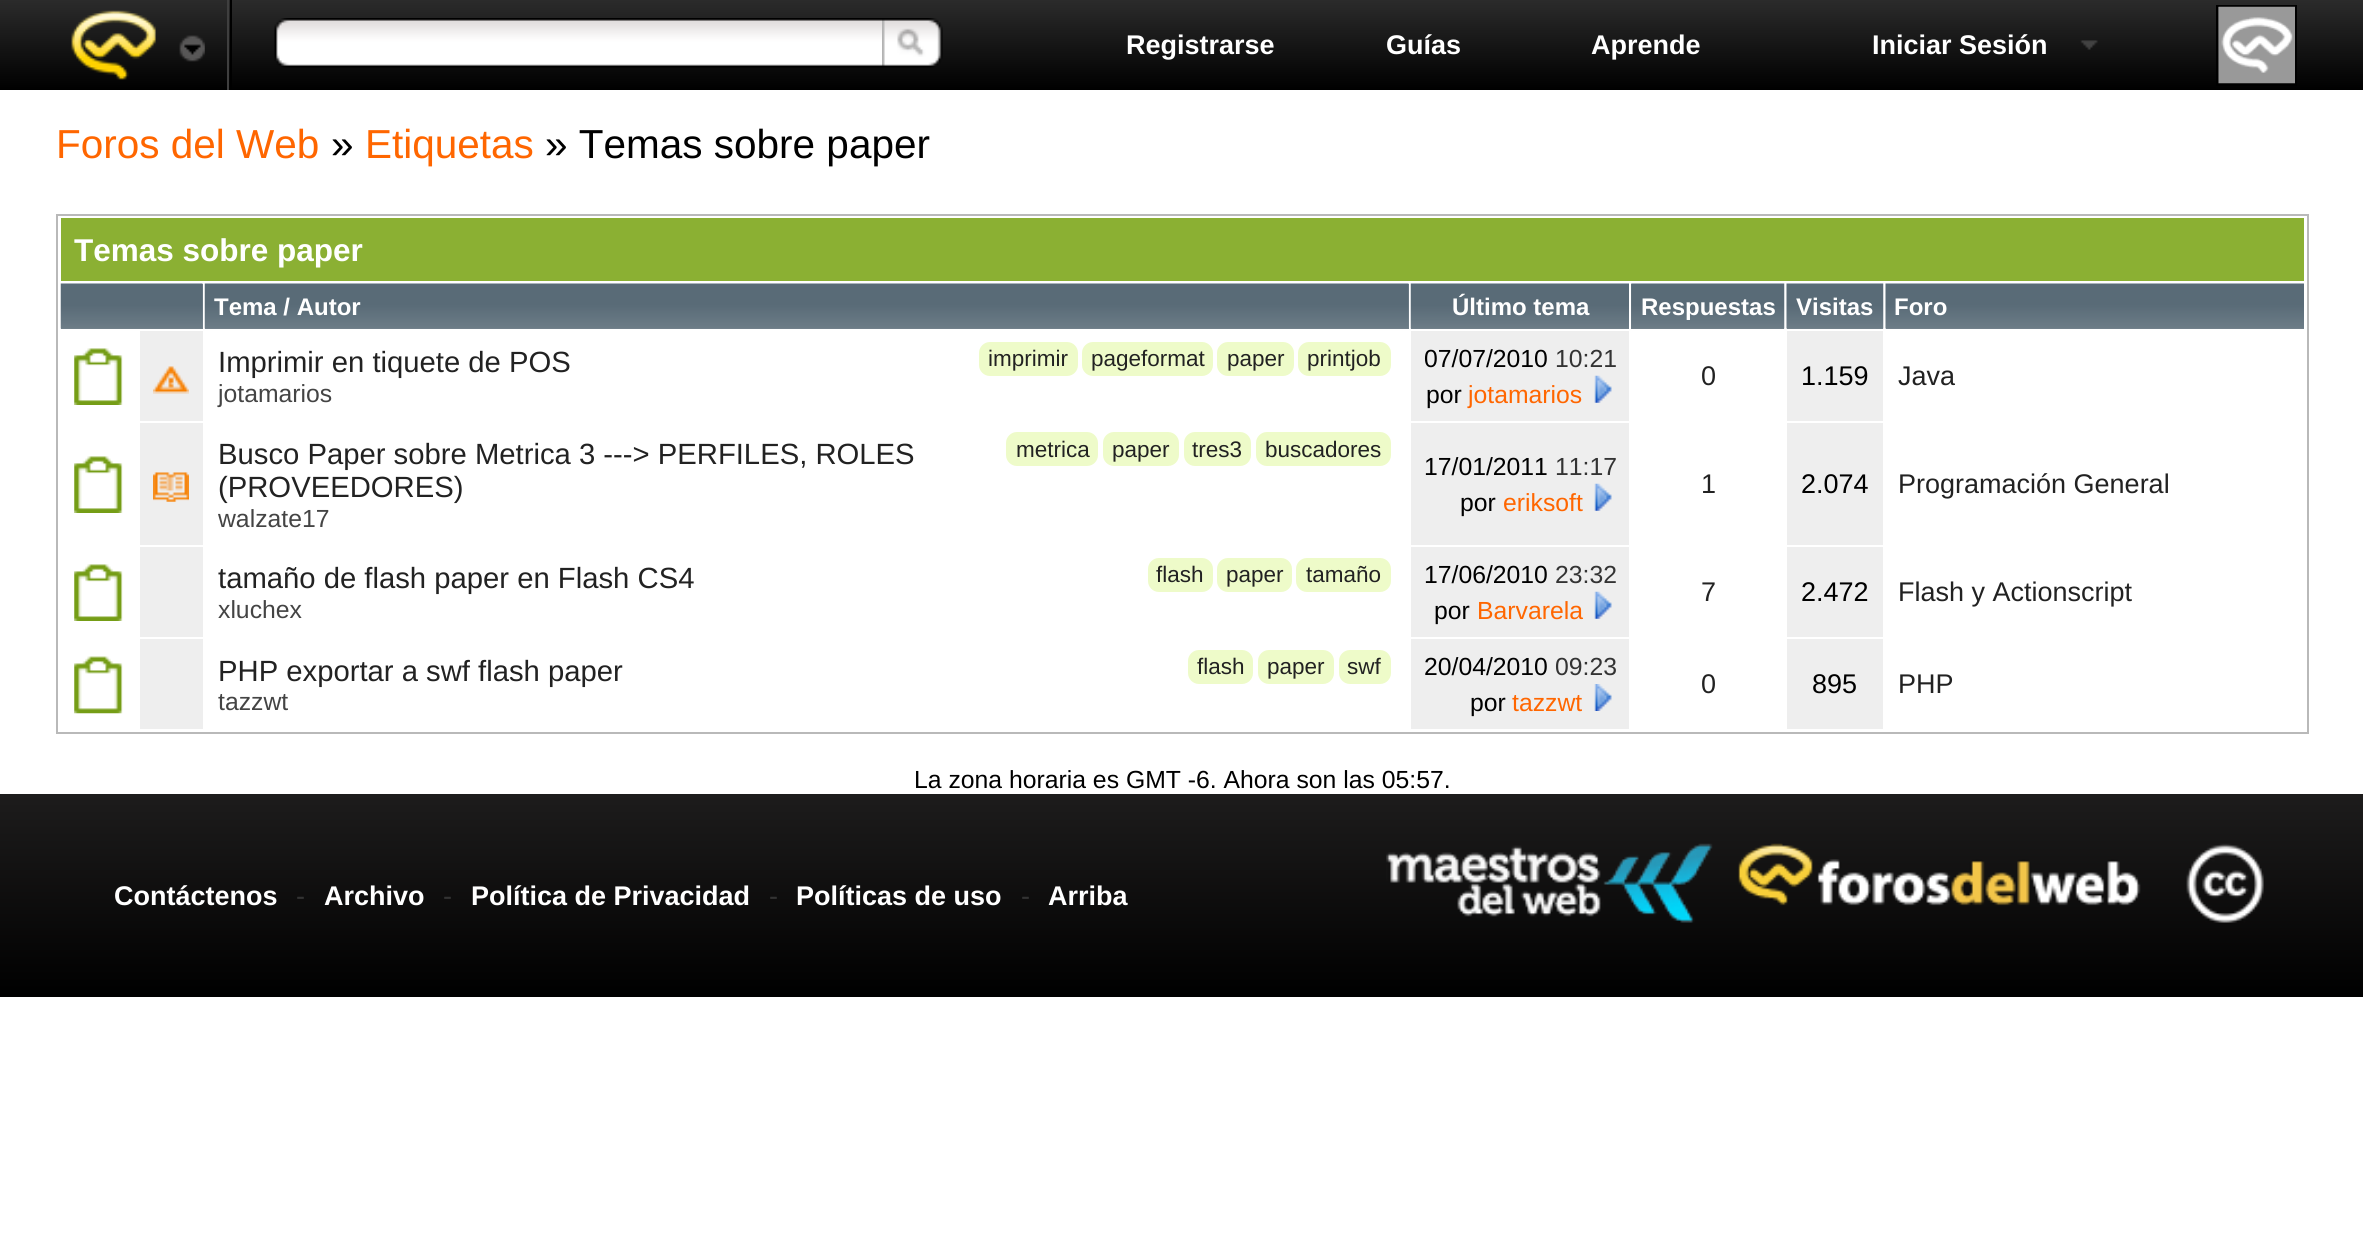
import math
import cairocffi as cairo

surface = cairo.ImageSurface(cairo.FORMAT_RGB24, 2363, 1240)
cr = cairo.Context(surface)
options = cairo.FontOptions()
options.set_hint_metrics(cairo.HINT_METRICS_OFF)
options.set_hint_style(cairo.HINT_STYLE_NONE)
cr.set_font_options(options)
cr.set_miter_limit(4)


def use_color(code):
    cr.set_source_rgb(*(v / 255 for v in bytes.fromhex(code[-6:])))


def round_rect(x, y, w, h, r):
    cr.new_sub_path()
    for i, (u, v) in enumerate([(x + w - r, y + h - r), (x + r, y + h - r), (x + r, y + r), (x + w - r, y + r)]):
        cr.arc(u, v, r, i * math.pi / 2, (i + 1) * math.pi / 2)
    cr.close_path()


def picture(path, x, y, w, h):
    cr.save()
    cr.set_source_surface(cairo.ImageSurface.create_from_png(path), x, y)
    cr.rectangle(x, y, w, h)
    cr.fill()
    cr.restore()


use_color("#ffffff")
cr.paint()
gradient = cairo.LinearGradient(0, 0, 0, 90)
gradient.add_color_stop_rgba(0, 0.169, 0.169, 0.169, 1)
gradient.add_color_stop_rgba(1, 0, 0, 0, 1)
cr.set_source(gradient)
cr.rectangle(0, 0, 2363, 90)
cr.fill()
use_color("#000000")
cr.rectangle(230, 0, 2, 90)
cr.fill()
use_color("#3f3f3f")
cr.rectangle(227, 0, 2, 90)
cr.fill()
picture("img1.png", 71, 10, 134, 70)
picture("img2.png", 274, 18, 608, 50)
picture("img3.png", 882, 18, 61, 50)
cr.select_font_face("Liberation Sans", cairo.FONT_SLANT_NORMAL, cairo.FONT_WEIGHT_BOLD)
cr.set_font_size(27)
use_color("#ffffff")
cr.move_to(1126, 54)
cr.show_text("Registrarse")
cr.move_to(1386, 54)
cr.show_text("Guías")
cr.move_to(1591, 54)
cr.show_text("Aprende")
cr.move_to(1872, 54)
cr.show_text("Iniciar Sesión")
picture("img4.png", 2080, 40, 18, 10)
cr.rectangle(2217, 6, 79, 79)
use_color("#000000")
cr.stroke()
picture("img5.png", 2218, 6, 77, 78)
cr.select_font_face("Liberation Sans")
cr.set_font_size(40.5)
use_color("#ff6600")
cr.move_to(56, 158)
cr.show_text("Foros del Web")
use_color("#000000")
cr.move_to(331, 158)
cr.show_text("»")
use_color("#ff6600")
cr.move_to(365, 158)
cr.show_text("Etiquetas")
use_color("#000000")
cr.move_to(545, 158)
cr.show_text("» Temas sobre paper")
cr.rectangle(57, 215, 2251, 518)
use_color("#b9b9b9")
cr.stroke()
use_color("#8bb033")
cr.rectangle(61, 218, 2243, 63)
cr.fill()
cr.select_font_face("Liberation Sans", cairo.FONT_SLANT_NORMAL, cairo.FONT_WEIGHT_BOLD)
cr.set_font_size(31.5)
use_color("#ffffff")
cr.move_to(74, 261)
cr.show_text("Temas sobre paper")
use_color("#76848e")
cr.rectangle(61, 284, 142, 45)
cr.fill()
picture("img6.png", 60, 283, 143, 46)
cr.rectangle(205, 284, 1204, 45)
cr.fill()
picture("img7.png", 204, 283, 1205, 46)
cr.set_font_size(24)
use_color("#ffffff")
cr.move_to(214, 315)
cr.show_text("Tema / Autor")
use_color("#76848e")
cr.rectangle(1411, 328, 218, 1)
cr.fill()
picture("img8.png", 1410, 283, 219, 46)
use_color("#ffffff")
cr.move_to(1452, 315)
cr.show_text("Último tema")
use_color("#76848e")
cr.rectangle(1631, 284, 153, 45)
cr.fill()
picture("img9.png", 1631, 283, 154, 46)
use_color("#ffffff")
cr.move_to(1641, 315)
cr.show_text("Respuestas")
use_color("#76848e")
cr.rectangle(1787, 328, 96, 1)
cr.fill()
picture("img10.png", 1786, 283, 98, 46)
use_color("#ffffff")
cr.move_to(1796, 315)
cr.show_text("Visitas")
use_color("#76848e")
cr.rectangle(1886, 328, 418, 1)
cr.fill()
picture("img11.png", 1885, 283, 419, 46)
use_color("#ffffff")
cr.move_to(1894, 315)
cr.show_text("Foro")
picture("img12.png", 74, 348, 49, 57)
use_color("#eeeeee")
cr.rectangle(140, 331, 63, 90)
cr.fill()
picture("img13.png", 153, 366, 36, 28)
cr.select_font_face("Liberation Sans")
cr.set_font_size(29.25)
use_color("#222222")
cr.move_to(218, 372)
cr.show_text("Imprimir en tiquete de POS")
use_color("#eefbc9")
round_rect(979, 342, 99, 34, 11)
cr.fill()
cr.set_font_size(22.5)
use_color("#222222")
cr.move_to(988, 366)
cr.show_text("imprimir")
use_color("#eefbc9")
round_rect(1082, 342, 131, 34, 11)
cr.fill()
use_color("#222222")
cr.move_to(1091, 366)
cr.show_text("pageformat")
use_color("#eefbc9")
round_rect(1217, 342, 77, 34, 11)
cr.fill()
use_color("#222222")
cr.move_to(1227, 366)
cr.show_text("paper")
use_color("#eefbc9")
round_rect(1298, 342, 93, 34, 11)
cr.fill()
use_color("#222222")
cr.move_to(1307, 366)
cr.show_text("printjob")
cr.set_font_size(24.75)
use_color("#444444")
cr.move_to(218, 402)
cr.show_text("jotamarios")
use_color("#eeeeee")
cr.rectangle(1411, 331, 218, 90)
cr.fill()
use_color("#000000")
cr.move_to(1424, 367)
cr.show_text("07/07/2010")
use_color("#333333")
cr.move_to(1555, 367)
cr.show_text("10:21")
use_color("#000000")
cr.move_to(1426, 403)
cr.show_text("por")
use_color("#ff6600")
cr.move_to(1468, 403)
cr.show_text("jotamarios")
picture("img14.png", 1594, 375, 18, 28)
cr.set_font_size(27)
use_color("#222222")
cr.move_to(1701, 385)
cr.show_text("0")
use_color("#eeeeee")
cr.rectangle(1787, 331, 96, 90)
cr.fill()
use_color("#000000")
cr.move_to(1801, 385)
cr.show_text("1.159")
use_color("#222222")
cr.move_to(1898, 385)
cr.show_text("Java")
picture("img12.png", 74, 456, 49, 57)
use_color("#eeeeee")
cr.rectangle(140, 423, 63, 122)
cr.fill()
picture("img15.png", 153, 472, 36, 30)
cr.set_font_size(29.25)
use_color("#222222")
cr.move_to(218, 464)
cr.show_text("Busco Paper sobre Metrica 3 ---> PERFILES, ROLES")
use_color("#eefbc9")
round_rect(1006, 432, 92, 34, 11)
cr.fill()
cr.set_font_size(22.5)
use_color("#222222")
cr.move_to(1016, 457)
cr.show_text("metrica")
use_color("#eefbc9")
round_rect(1103, 432, 76, 34, 11)
cr.fill()
use_color("#222222")
cr.move_to(1112, 457)
cr.show_text("paper")
use_color("#eefbc9")
round_rect(1184, 432, 67, 34, 11)
cr.fill()
use_color("#222222")
cr.move_to(1192, 457)
cr.show_text("tres3")
use_color("#eefbc9")
round_rect(1256, 432, 135, 34, 11)
cr.fill()
use_color("#222222")
cr.move_to(1265, 457)
cr.show_text("buscadores")
cr.set_font_size(29.25)
cr.move_to(218, 497)
cr.show_text("(PROVEEDORES)")
cr.set_font_size(24.75)
use_color("#444444")
cr.move_to(218, 527)
cr.show_text("walzate17")
use_color("#eeeeee")
cr.rectangle(1411, 423, 218, 122)
cr.fill()
use_color("#000000")
cr.move_to(1424, 475)
cr.show_text("17/01/2011")
use_color("#333333")
cr.move_to(1555, 475)
cr.show_text("11:17")
use_color("#000000")
cr.move_to(1460, 511)
cr.show_text("por")
use_color("#ff6600")
cr.move_to(1503, 511)
cr.show_text("eriksoft")
picture("img14.png", 1594, 483, 18, 28)
cr.set_font_size(27)
use_color("#222222")
cr.move_to(1701, 493)
cr.show_text("1")
use_color("#eeeeee")
cr.rectangle(1787, 423, 96, 122)
cr.fill()
use_color("#000000")
cr.move_to(1801, 493)
cr.show_text("2.074")
use_color("#222222")
cr.move_to(1898, 493)
cr.show_text("Programación General")
picture("img16.png", 74, 564, 49, 57)
use_color("#eeeeee")
cr.rectangle(140, 547, 63, 90)
cr.fill()
cr.set_font_size(29.25)
use_color("#222222")
cr.move_to(218, 588)
cr.show_text("tamaño de flash paper en Flash CS4")
use_color("#eefbc9")
round_rect(1148, 558, 65, 34, 11)
cr.fill()
cr.set_font_size(22.5)
use_color("#222222")
cr.move_to(1156, 582)
cr.show_text("flash")
use_color("#eefbc9")
round_rect(1217, 558, 75, 34, 11)
cr.fill()
use_color("#222222")
cr.move_to(1226, 582)
cr.show_text("paper")
use_color("#eefbc9")
round_rect(1296, 558, 95, 34, 11)
cr.fill()
use_color("#222222")
cr.move_to(1306, 582)
cr.show_text("tamaño")
cr.set_font_size(24.75)
use_color("#444444")
cr.move_to(218, 618)
cr.show_text("xluchex")
use_color("#eeeeee")
cr.rectangle(1411, 547, 218, 90)
cr.fill()
use_color("#000000")
cr.move_to(1424, 583)
cr.show_text("17/06/2010")
use_color("#333333")
cr.move_to(1555, 583)
cr.show_text("23:32")
use_color("#000000")
cr.move_to(1434, 619)
cr.show_text("por")
use_color("#ff6600")
cr.move_to(1477, 619)
cr.show_text("Barvarela")
picture("img14.png", 1594, 591, 18, 28)
cr.set_font_size(27)
use_color("#222222")
cr.move_to(1701, 601)
cr.show_text("7")
use_color("#eeeeee")
cr.rectangle(1787, 547, 96, 90)
cr.fill()
use_color("#000000")
cr.move_to(1801, 601)
cr.show_text("2.472")
use_color("#222222")
cr.move_to(1898, 601)
cr.show_text("Flash y Actionscript")
picture("img17.png", 74, 656, 49, 58)
use_color("#eeeeee")
cr.rectangle(140, 639, 63, 90)
cr.fill()
cr.set_font_size(29.25)
use_color("#222222")
cr.move_to(218, 681)
cr.show_text("PHP exportar a swf flash paper")
use_color("#eefbc9")
round_rect(1188, 650, 65, 34, 11)
cr.fill()
cr.set_font_size(22.5)
use_color("#222222")
cr.move_to(1197, 674)
cr.show_text("flash")
use_color("#eefbc9")
round_rect(1258, 650, 76, 34, 11)
cr.fill()
use_color("#222222")
cr.move_to(1267, 674)
cr.show_text("paper")
use_color("#eefbc9")
round_rect(1339, 650, 52, 34, 11)
cr.fill()
use_color("#222222")
cr.move_to(1347, 674)
cr.show_text("swf")
cr.set_font_size(24.75)
use_color("#444444")
cr.move_to(218, 710)
cr.show_text("tazzwt")
use_color("#eeeeee")
cr.rectangle(1411, 639, 218, 90)
cr.fill()
use_color("#000000")
cr.move_to(1424, 675)
cr.show_text("20/04/2010")
use_color("#333333")
cr.move_to(1555, 675)
cr.show_text("09:23")
use_color("#000000")
cr.move_to(1470, 711)
cr.show_text("por")
use_color("#ff6600")
cr.move_to(1512, 711)
cr.show_text("tazzwt")
picture("img18.png", 1594, 684, 18, 27)
cr.set_font_size(27)
use_color("#222222")
cr.move_to(1701, 693)
cr.show_text("0")
use_color("#eeeeee")
cr.rectangle(1787, 639, 96, 90)
cr.fill()
use_color("#000000")
cr.move_to(1812, 693)
cr.show_text("895")
use_color("#222222")
cr.move_to(1898, 693)
cr.show_text("PHP")
cr.set_font_size(24.75)
use_color("#000000")
cr.move_to(914, 788)
cr.show_text("La zona horaria es GMT -6. Ahora son las 05:57.")
gradient = cairo.LinearGradient(0, 794, 0, 997)
gradient.add_color_stop_rgba(0, 0.114, 0.11, 0.11, 1)
gradient.add_color_stop_rgba(1, 0, 0, 0, 1)
cr.set_source(gradient)
cr.rectangle(0, 794, 2363, 203)
cr.fill()
cr.select_font_face("Liberation Sans", cairo.FONT_SLANT_NORMAL, cairo.FONT_WEIGHT_BOLD)
cr.set_font_size(27)
use_color("#ffffff")
cr.move_to(114, 905)
cr.show_text("Contáctenos")
cr.select_font_face("Liberation Sans")
use_color("#333333")
cr.move_to(296, 905)
cr.show_text("-")
cr.select_font_face("Liberation Sans", cairo.FONT_SLANT_NORMAL, cairo.FONT_WEIGHT_BOLD)
use_color("#ffffff")
cr.move_to(324, 905)
cr.show_text("Archivo")
cr.select_font_face("Liberation Sans")
use_color("#333333")
cr.move_to(443, 905)
cr.show_text("-")
cr.select_font_face("Liberation Sans", cairo.FONT_SLANT_NORMAL, cairo.FONT_WEIGHT_BOLD)
use_color("#ffffff")
cr.move_to(471, 905)
cr.show_text("Política de Privacidad")
cr.select_font_face("Liberation Sans")
use_color("#333333")
cr.move_to(769, 905)
cr.show_text("-")
cr.select_font_face("Liberation Sans", cairo.FONT_SLANT_NORMAL, cairo.FONT_WEIGHT_BOLD)
use_color("#ffffff")
cr.move_to(796, 905)
cr.show_text("Políticas de uso")
cr.select_font_face("Liberation Sans")
use_color("#333333")
cr.move_to(1021, 905)
cr.show_text("-")
cr.select_font_face("Liberation Sans", cairo.FONT_SLANT_NORMAL, cairo.FONT_WEIGHT_BOLD)
use_color("#ffffff")
cr.move_to(1048, 905)
cr.show_text("Arriba")
picture("img19.png", 1386, 843, 327, 80)
picture("img20.png", 1738, 843, 403, 63)
picture("img21.png", 2186, 843, 78, 80)
surface.write_to_png("result.png")
